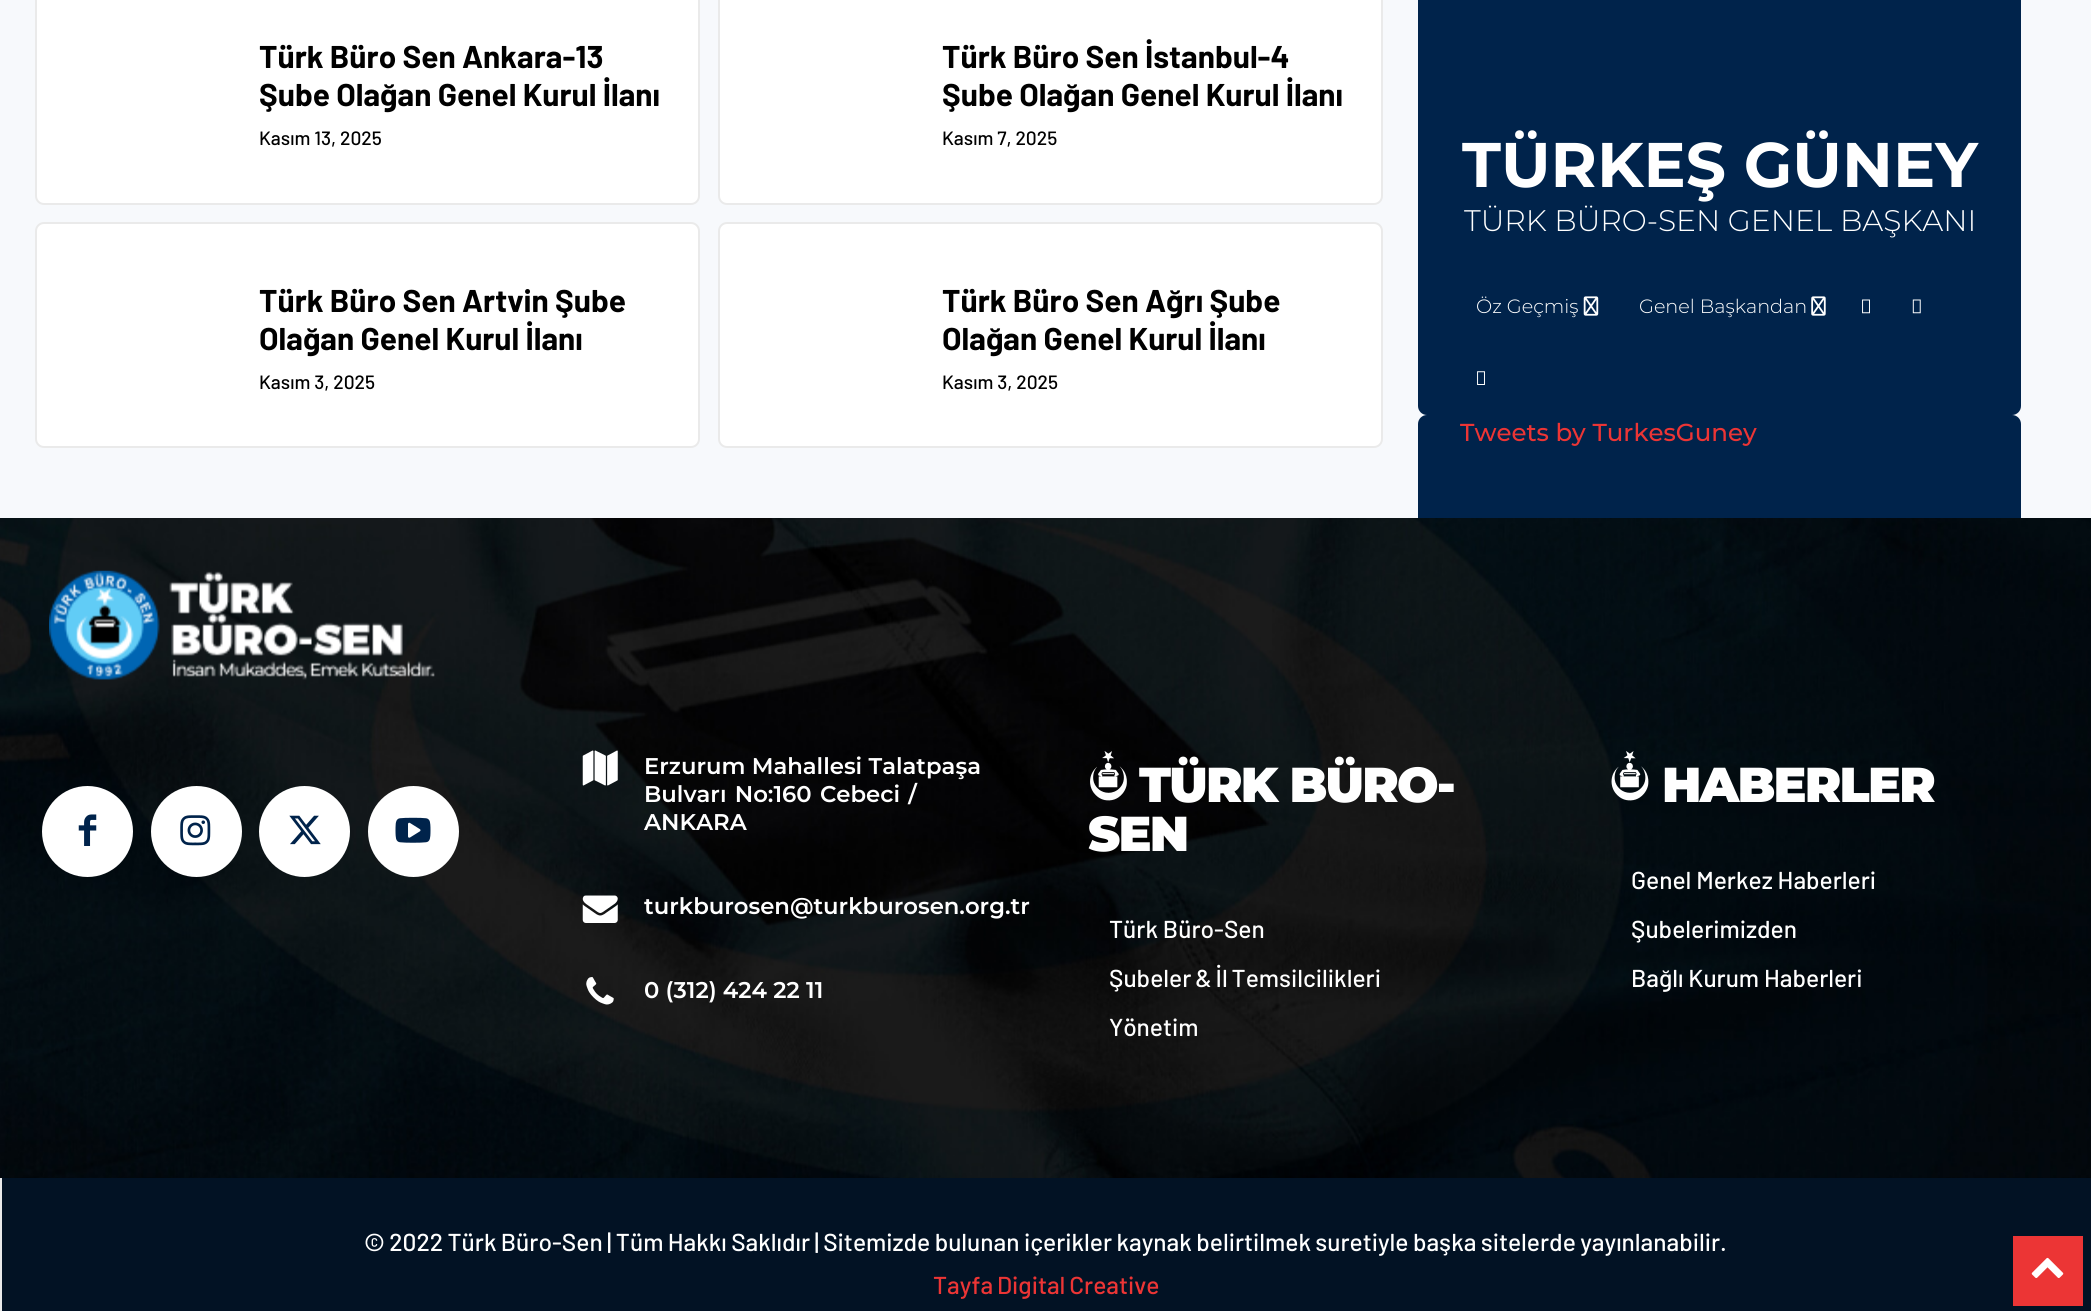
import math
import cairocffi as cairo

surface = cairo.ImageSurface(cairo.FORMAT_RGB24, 2091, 1311)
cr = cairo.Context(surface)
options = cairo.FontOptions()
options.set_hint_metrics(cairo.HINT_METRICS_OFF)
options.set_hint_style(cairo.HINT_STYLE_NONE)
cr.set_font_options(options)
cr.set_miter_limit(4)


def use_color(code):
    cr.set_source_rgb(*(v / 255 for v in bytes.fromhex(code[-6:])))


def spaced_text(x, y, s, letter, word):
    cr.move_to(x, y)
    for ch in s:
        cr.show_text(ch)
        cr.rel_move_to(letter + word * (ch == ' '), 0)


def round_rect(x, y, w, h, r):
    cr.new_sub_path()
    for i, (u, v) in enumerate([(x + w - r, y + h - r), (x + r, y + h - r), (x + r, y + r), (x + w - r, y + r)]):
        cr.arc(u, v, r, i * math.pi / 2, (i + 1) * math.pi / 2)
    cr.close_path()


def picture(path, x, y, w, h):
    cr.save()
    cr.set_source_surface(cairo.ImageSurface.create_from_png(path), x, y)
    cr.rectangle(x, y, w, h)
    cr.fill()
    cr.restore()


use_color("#f7f9fc")
cr.paint()
use_color("#ffffff")
round_rect(36, -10, 663, 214, 8)
cr.fill_preserve()
use_color("#eaeaea")
cr.stroke()
cr.select_font_face("Barlow", cairo.FONT_SLANT_NORMAL, cairo.FONT_WEIGHT_BOLD)
cr.set_font_size(31.5)
use_color("#000000")
cr.move_to(259, 68)
cr.show_text("Türk Büro Sen Ankara-13")
cr.move_to(259, 106)
cr.show_text("Şube Olağan Genel Kurul İlanı")
cr.select_font_face("Barlow Medium")
cr.set_font_size(19.25)
cr.move_to(259, 145)
cr.show_text("Kasım 13, 2025")
use_color("#ffffff")
round_rect(719, -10, 663, 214, 8)
cr.fill_preserve()
use_color("#eaeaea")
cr.stroke()
cr.select_font_face("Barlow", cairo.FONT_SLANT_NORMAL, cairo.FONT_WEIGHT_BOLD)
cr.set_font_size(31.5)
use_color("#000000")
cr.move_to(942, 68)
cr.show_text("Türk Büro Sen İstanbul-4")
cr.move_to(942, 106)
cr.show_text("Şube Olağan Genel Kurul İlanı")
cr.select_font_face("Barlow Medium")
cr.set_font_size(19.25)
cr.move_to(942, 145)
cr.show_text("Kasım 7, 2025")
use_color("#ffffff")
round_rect(36, 223, 663, 224, 8)
cr.fill_preserve()
use_color("#eaeaea")
cr.stroke()
cr.select_font_face("Barlow", cairo.FONT_SLANT_NORMAL, cairo.FONT_WEIGHT_BOLD)
cr.set_font_size(31.5)
use_color("#000000")
cr.move_to(259, 312)
cr.show_text("Türk Büro Sen Artvin Şube")
cr.move_to(259, 350)
cr.show_text("Olağan Genel Kurul İlanı")
cr.select_font_face("Barlow Medium")
cr.set_font_size(19.25)
cr.move_to(259, 389)
cr.show_text("Kasım 3, 2025")
use_color("#ffffff")
round_rect(719, 223, 663, 224, 8)
cr.fill_preserve()
use_color("#eaeaea")
cr.stroke()
cr.select_font_face("Barlow", cairo.FONT_SLANT_NORMAL, cairo.FONT_WEIGHT_BOLD)
cr.set_font_size(31.5)
use_color("#000000")
cr.move_to(942, 312)
cr.show_text("Türk Büro Sen Ağrı Şube")
cr.move_to(942, 350)
cr.show_text("Olağan Genel Kurul İlanı")
cr.select_font_face("Barlow Medium")
cr.set_font_size(19.25)
cr.move_to(942, 389)
cr.show_text("Kasım 3, 2025")
use_color("#00234b")
round_rect(1418, -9, 603, 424, 9)
cr.fill()
cr.select_font_face("Montserrat", cairo.FONT_SLANT_NORMAL, cairo.FONT_WEIGHT_BOLD)
cr.set_font_size(63)
use_color("#ffffff")
cr.move_to(1462, 187)
cr.show_text("TÜRKEŞ GÜNEY")
cr.select_font_face("Montserrat Light")
cr.set_font_size(29.75)
cr.move_to(1464, 231)
cr.show_text("TÜRK BÜRO-SEN GENEL BAŞKANI")
cr.set_font_size(19.25)
cr.move_to(1476, 313)
cr.show_text("Öz Geçmiş")
picture("img1.png", 1583, 296, 16, 20)
cr.move_to(1639, 313)
cr.show_text("Genel Başkandan")
picture("img2.png", 1811, 296, 15, 20)
picture("img3.png", 1862, 299, 8, 15)
picture("img4.png", 1912, 299, 9, 15)
picture("img5.png", 1477, 371, 8, 14)
use_color("#00234b")
round_rect(1418, 415, 603, 121, 9)
cr.fill()
cr.select_font_face("Montserrat Medium")
cr.set_font_size(24.5)
use_color("#ec3535")
cr.move_to(1460, 441)
cr.show_text("Tweets by TurkesGuney")
picture("img6.png", 0, 518, 2091, 660)
picture("img7.png", 49, 570, 386, 110)
use_color("#ffffff")
cr.arc(87.5, 831.5, 45.5, 0, 2 * math.pi)
cr.fill()
picture("img8.png", 78, 814, 19, 32)
cr.arc(196.5, 831.5, 45.5, 0, 2 * math.pi)
cr.fill()
picture("img9.png", 180, 815, 31, 31)
cr.arc(304.5, 831.5, 45.5, 0, 2 * math.pi)
cr.fill()
picture("img10.png", 289, 815, 32, 30)
cr.arc(413.5, 831.5, 45.5, 0, 2 * math.pi)
cr.fill()
picture("img11.png", 395, 817, 36, 26)
picture("img12.png", 582, 750, 36, 36)
cr.select_font_face("Montserrat SemiBold")
cr.set_font_size(22.75)
cr.move_to(644, 774)
cr.show_text("Erzurum Mahallesi Talatpaşa")
spaced_text(644, 802, "Bulvarı No:160 Cebeci /", 0, 2)
cr.move_to(644, 830)
cr.show_text("ANKARA")
picture("img13.png", 582, 895, 36, 28)
cr.move_to(644, 914)
cr.show_text("turkburosen@turkburosen.org.tr")
picture("img14.png", 586, 977, 28, 28)
cr.move_to(644, 998)
cr.show_text("0 (312) 424 22 11")
picture("img15.png", 1090, 751, 37, 50)
cr.select_font_face("Montserrat Black")
cr.set_font_size(49)
spaced_text(1139, 802, "TÜRK BÜRO-", -1.75, 0)
spaced_text(1088, 851, "SEN", -1.75, 0)
cr.select_font_face("Barlow Medium")
cr.set_font_size(24.5)
cr.move_to(1109, 938)
cr.show_text("Türk Büro-Sen")
spaced_text(1109, 987, "Şubeler & İl Temsilcilikleri", 0, -1)
cr.move_to(1109, 1036)
cr.show_text("Yönetim")
picture("img16.png", 1611, 751, 38, 50)
cr.select_font_face("Montserrat Black")
cr.set_font_size(49)
spaced_text(1662, 802, "HABERLER", -1.75, 0)
cr.select_font_face("Barlow Medium")
cr.set_font_size(24.5)
cr.move_to(1631, 889)
cr.show_text("Genel Merkez Haberleri")
cr.move_to(1631, 938)
cr.show_text("Şubelerimizden")
cr.move_to(1631, 987)
cr.show_text("Bağlı Kurum Haberleri")
use_color("#eaeaea")
cr.rectangle(0, 1178, 2, 133)
cr.fill()
use_color("#021224")
cr.rectangle(2, 1178, 2089, 133)
cr.fill()
use_color("#ffffff")
spaced_text(364, 1251, "© 2022 Türk Büro-Sen | Tüm Hakkı Saklıdır | Sitemizde bulunan içerikler kaynak belirtilmek suretiyle başka sitelerde yayınlanabilir.", 0, -0.5)
use_color("#ec3535")
spaced_text(933, 1294, "Tayfa Digital Creative", 0, -1)
cr.rectangle(2013, 1236, 70, 70)
cr.fill()
picture("img17.png", 2031, 1257, 33, 21)
surface.write_to_png("result.png")
